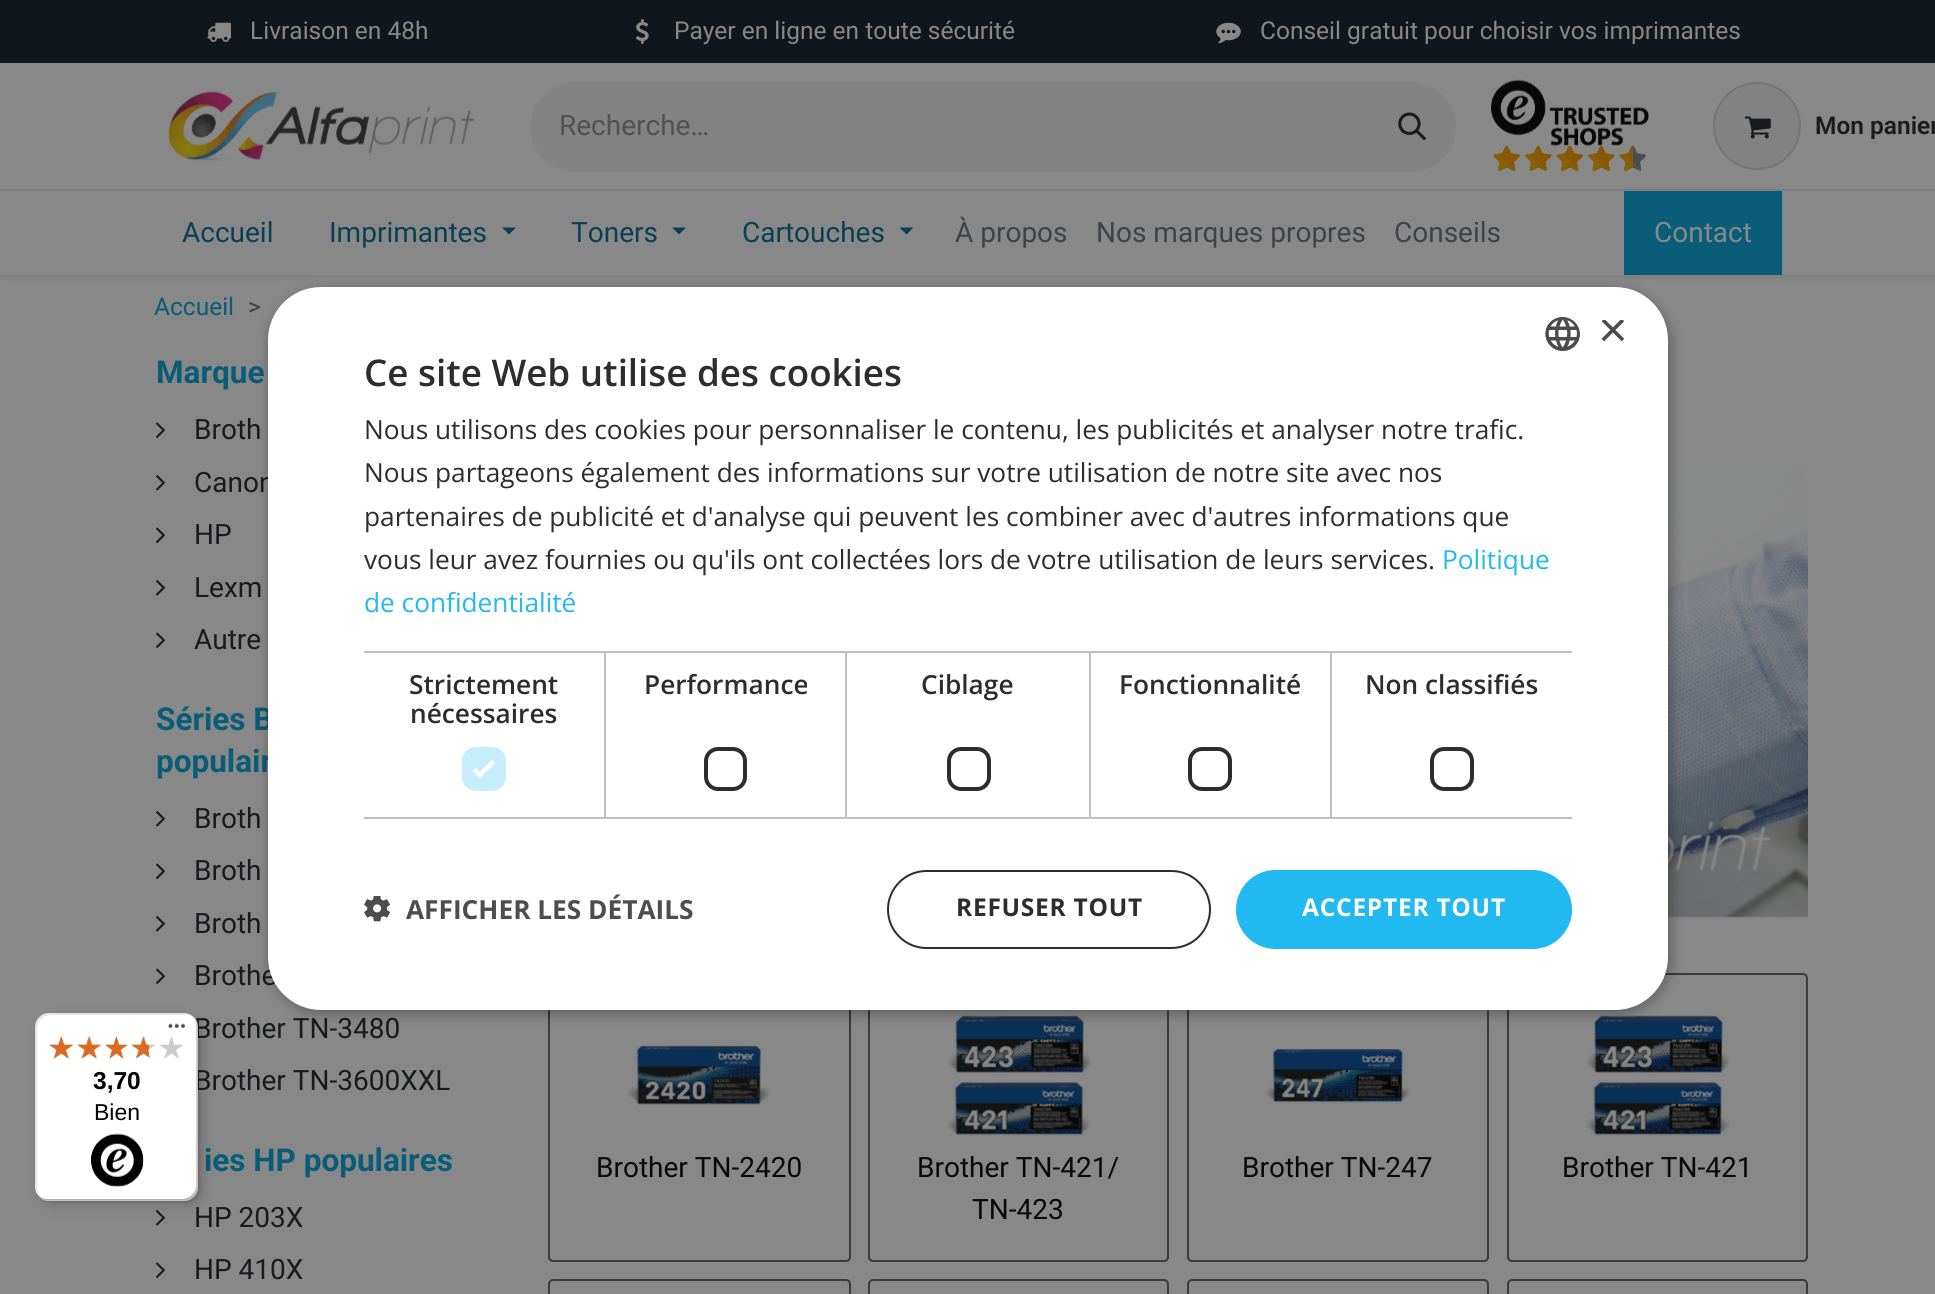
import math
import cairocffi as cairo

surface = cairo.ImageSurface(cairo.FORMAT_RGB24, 1935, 1294)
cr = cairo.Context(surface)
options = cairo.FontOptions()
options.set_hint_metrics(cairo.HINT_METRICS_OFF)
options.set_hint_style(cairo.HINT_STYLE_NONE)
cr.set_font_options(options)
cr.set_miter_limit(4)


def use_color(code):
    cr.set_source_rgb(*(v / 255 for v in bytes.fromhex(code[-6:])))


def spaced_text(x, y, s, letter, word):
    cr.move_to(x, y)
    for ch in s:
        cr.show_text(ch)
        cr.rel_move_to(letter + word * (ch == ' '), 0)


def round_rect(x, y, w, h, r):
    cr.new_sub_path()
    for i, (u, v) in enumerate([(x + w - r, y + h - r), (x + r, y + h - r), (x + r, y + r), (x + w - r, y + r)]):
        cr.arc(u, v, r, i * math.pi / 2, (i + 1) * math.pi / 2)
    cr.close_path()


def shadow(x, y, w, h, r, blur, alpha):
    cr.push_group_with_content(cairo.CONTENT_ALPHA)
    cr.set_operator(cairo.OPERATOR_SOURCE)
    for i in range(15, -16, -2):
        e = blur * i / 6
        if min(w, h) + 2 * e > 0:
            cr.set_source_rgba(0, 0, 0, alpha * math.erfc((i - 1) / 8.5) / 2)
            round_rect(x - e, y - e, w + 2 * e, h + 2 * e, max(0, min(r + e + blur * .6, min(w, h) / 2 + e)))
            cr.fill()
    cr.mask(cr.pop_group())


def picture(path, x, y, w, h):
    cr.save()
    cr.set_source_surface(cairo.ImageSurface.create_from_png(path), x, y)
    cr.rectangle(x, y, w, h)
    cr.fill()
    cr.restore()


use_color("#888888")
cr.paint()
use_color("#090909")
shadow(0, 2, 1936, 275, 0, 2.5, 0.1)
use_color("#888888")
cr.rectangle(0, 63, 1935, 212)
cr.fill()
use_color("#11151c")
cr.rectangle(0, 0, 1935, 63)
cr.fill()
picture("img1.png", 207, 22, 24, 20)
cr.select_font_face("Roboto")
cr.set_font_size(24.5)
use_color("#888888")
cr.move_to(250, 39)
cr.show_text("Livraison en 48h")
picture("img2.png", 635, 19, 14, 25)
cr.move_to(674, 39)
cr.show_text("Payer en ligne en toute sécurité")
picture("img3.png", 1216, 22, 25, 22)
cr.move_to(1260, 39)
cr.show_text("Conseil gratuit pour choisir vos imprimantes")
picture("img4.png", 168, 91, 307, 70)
use_color("#828282")
cr.new_path()
cr.move_to(575, 82)
cr.line_to(1370, 82)
cr.line_to(1370, 172)
cr.line_to(575, 172)
cr.curve_to(550, 172, 530, 152, 530, 127)
cr.curve_to(530, 102, 550, 82, 575, 82)
cr.close_path()
cr.fill()
cr.set_font_size(28)
use_color("#515253")
cr.move_to(559, 135)
cr.show_text("Recherche…")
use_color("#828282")
cr.new_path()
cr.move_to(1369, 82)
cr.line_to(1411, 82)
cr.curve_to(1436, 82, 1456, 102, 1456, 127)
cr.curve_to(1456, 152, 1436, 172, 1411, 172)
cr.line_to(1369, 172)
cr.close_path()
cr.fill()
picture("img5.png", 1398, 112, 29, 29)
picture("img6.png", 1491, 79, 158, 67)
picture("img7.png", 1493, 145, 27, 26)
picture("img8.png", 1525, 145, 27, 26)
picture("img9.png", 1556, 145, 27, 26)
picture("img10.png", 1588, 145, 27, 26)
picture("img11.png", 1619, 145, 27, 26)
cr.arc(1757, 126, 44, 0, 2 * math.pi)
cr.fill()
cr.arc(1757, 126, 43, 0, 2 * math.pi)
cr.set_source_rgba(0.035, 0.035, 0.035, 0.1)
cr.stroke()
picture("img12.png", 1744, 116, 27, 23)
cr.select_font_face("Roboto SemiBold")
cr.set_font_size(24.5)
use_color("#191b1d")
cr.move_to(1815, 134)
cr.show_text("Mon panier")
use_color("#7c7c7c")
cr.rectangle(0, 189, 1935, 2)
cr.fill()
cr.select_font_face("Roboto")
cr.set_font_size(28)
use_color("#094053")
cr.move_to(182, 242)
cr.show_text("Accueil")
cr.move_to(329, 242)
cr.show_text("Imprimantes")
cr.new_path()
cr.move_to(502, 227.5)
cr.line_to(516, 227.5)
cr.line_to(509, 234.5)
cr.close_path()
cr.fill()
cr.move_to(571, 242)
cr.show_text("Toners")
cr.new_path()
cr.move_to(672, 227.5)
cr.line_to(686, 227.5)
cr.line_to(679, 234.5)
cr.close_path()
cr.fill()
cr.move_to(742, 242)
cr.show_text("Cartouches")
cr.new_path()
cr.move_to(899.5, 227.5)
cr.line_to(913.5, 227.5)
cr.line_to(906.5, 234.5)
cr.close_path()
cr.fill()
use_color("#3f4347")
cr.move_to(955, 242)
cr.show_text("À propos")
cr.move_to(1096, 242)
cr.show_text("Nos marques propres")
cr.move_to(1394, 242)
cr.show_text("Conseils")
use_color("#095d79")
cr.rectangle(1624, 191, 158, 84)
cr.fill()
use_color("#888888")
cr.move_to(1654, 242)
cr.show_text("Contact")
cr.set_font_size(24.5)
use_color("#095d79")
cr.move_to(154, 315)
cr.show_text("Accueil")
use_color("#3f4347")
cr.move_to(248, 315)
cr.show_text(">")
cr.select_font_face("Roboto", cairo.FONT_SLANT_NORMAL, cairo.FONT_WEIGHT_BOLD)
cr.set_font_size(31.5)
use_color("#095d79")
cr.move_to(156, 383)
cr.show_text("Marque")
picture("img13.png", 156, 422, 9, 16)
cr.select_font_face("Roboto")
cr.set_font_size(28)
use_color("#191b1d")
cr.move_to(194, 439)
cr.show_text("Broth")
picture("img14.png", 156, 475, 9, 16)
cr.move_to(194, 492)
cr.show_text("Canon")
picture("img13.png", 156, 527, 9, 16)
cr.move_to(194, 544)
cr.show_text("HP")
picture("img14.png", 156, 580, 9, 16)
cr.move_to(194, 597)
cr.show_text("Lexm")
picture("img13.png", 156, 632, 9, 16)
cr.move_to(194, 649)
cr.show_text("Autre")
cr.select_font_face("Roboto", cairo.FONT_SLANT_NORMAL, cairo.FONT_WEIGHT_BOLD)
cr.set_font_size(31.5)
use_color("#095d79")
cr.move_to(156, 730)
cr.show_text("Séries B")
cr.move_to(156, 772)
cr.show_text("populair")
picture("img14.png", 156, 811, 9, 16)
cr.select_font_face("Roboto")
cr.set_font_size(28)
use_color("#191b1d")
cr.move_to(194, 828)
cr.show_text("Broth")
picture("img13.png", 156, 863, 9, 16)
cr.move_to(194, 880)
cr.show_text("Broth")
picture("img14.png", 156, 916, 9, 16)
cr.move_to(194, 933)
cr.show_text("Broth")
picture("img13.png", 156, 968, 9, 16)
cr.move_to(194, 985)
cr.show_text("Brothe")
cr.move_to(194, 1038)
cr.show_text("Brother TN-3480")
cr.move_to(194, 1090)
cr.show_text("Brother TN-3600XXL")
cr.select_font_face("Roboto", cairo.FONT_SLANT_NORMAL, cairo.FONT_WEIGHT_BOLD)
cr.set_font_size(31.5)
use_color("#095d79")
cr.move_to(204, 1171)
cr.show_text("ies HP populaires")
picture("img14.png", 156, 1210, 9, 16)
cr.select_font_face("Roboto")
cr.set_font_size(28)
use_color("#191b1d")
cr.move_to(194, 1227)
cr.show_text("HP 203X")
picture("img13.png", 156, 1262, 9, 16)
cr.move_to(194, 1279)
cr.show_text("HP 410X")
picture("img15.png", 1668, 454, 140, 464)
round_rect(549, 974, 301, 287, 4)
use_color("#3b3b3b")
cr.stroke()
picture("img16.png", 627, 1045, 144, 60)
use_color("#090909")
cr.move_to(596, 1177)
cr.show_text("Brother TN-2420")
round_rect(869, 974, 299, 287, 4)
use_color("#3b3b3b")
cr.stroke()
picture("img17.png", 947, 1012, 144, 124)
use_color("#090909")
cr.move_to(917, 1177)
cr.show_text("Brother TN-421/")
cr.move_to(972, 1219)
cr.show_text("TN-423")
round_rect(1188, 974, 300, 287, 4)
use_color("#3b3b3b")
cr.stroke()
picture("img18.png", 1265, 1048, 146, 55)
use_color("#090909")
cr.move_to(1242, 1177)
cr.show_text("Brother TN-247")
round_rect(1508, 974, 299, 287, 4)
use_color("#3b3b3b")
cr.stroke()
picture("img19.png", 1586, 1012, 143, 124)
use_color("#090909")
cr.move_to(1562, 1177)
cr.show_text("Brother TN-421")
round_rect(549, 1280, 301, 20, 4)
use_color("#3b3b3b")
cr.stroke()
round_rect(869, 1280, 299, 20, 4)
cr.stroke()
round_rect(1188, 1280, 300, 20, 4)
cr.stroke()
round_rect(1508, 1280, 299, 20, 4)
cr.stroke()
use_color("#000000")
shadow(270, 291, 1400, 722, 53, 7, 0.35)
use_color("#ffffff")
round_rect(268, 287, 1400, 723, 53)
cr.fill()
picture("img20.png", 1545, 317, 35, 34)
cr.save()
cr.rectangle(1598, 320, 26, 27)
cr.clip()
cr.select_font_face("Liberation Sans")
cr.set_font_size(51)
use_color("#4d4d4d")
cr.move_to(1598, 347)
cr.show_text("×")
cr.restore()
cr.select_font_face("Open Sans SemiBold")
cr.set_font_size(36.75)
use_color("#2d2d2d")
cr.move_to(364, 386)
cr.show_text("Ce site Web utilise des cookies")
cr.select_font_face("Open Sans")
cr.set_font_size(26.25)
cr.move_to(364, 439)
cr.show_text("Nous utilisons des cookies pour personnaliser le contenu, les publicités et analyser notre trafic.")
cr.move_to(364, 482)
cr.show_text("Nous partageons également des informations sur votre utilisation de notre site avec nos")
cr.move_to(364, 526)
cr.show_text("partenaires de publicité et d'analyse qui peuvent les combiner avec d'autres informations que")
cr.move_to(364, 569)
cr.show_text("vous leur avez fournies ou qu'ils ont collectées lors de votre utilisation de leurs services.")
use_color("#22b8f0")
cr.move_to(1442, 569)
cr.show_text("Politique")
cr.move_to(364, 612)
cr.show_text("de confidentialité")
use_color("#c0c0c0")
cr.rectangle(364, 651, 726, 2)
cr.fill()
cr.rectangle(604, 651, 2, 168)
cr.fill()
cr.rectangle(364, 817, 242, 2)
cr.fill()
cr.select_font_face("Open Sans SemiBold")
use_color("#2d2d2d")
cr.move_to(409, 694)
cr.show_text("Strictement")
cr.move_to(410, 723)
cr.show_text("nécessaires")
use_color("#c6edfb")
round_rect(462, 747, 44, 44, 14)
cr.fill()
cr.new_path()
cr.move_to(474, 769.5)
cr.line_to(480, 775)
cr.line_to(493.5, 761.5)
use_color("#ffffff")
cr.set_line_width(4.6)
cr.stroke()
use_color("#c0c0c0")
cr.rectangle(845, 651, 2, 168)
cr.fill()
cr.rectangle(606, 817, 241, 2)
cr.fill()
use_color("#2d2d2d")
cr.move_to(644, 694)
cr.show_text("Performance")
round_rect(706, 749, 39, 40, 12)
cr.set_line_width(4)
cr.stroke()
use_color("#c0c0c0")
cr.rectangle(1089, 651, 2, 168)
cr.fill()
cr.rectangle(847, 817, 243, 2)
cr.fill()
use_color("#2d2d2d")
cr.move_to(921, 694)
cr.show_text("Ciblage")
round_rect(949, 749, 40, 40, 12)
cr.stroke()
use_color("#c0c0c0")
cr.rectangle(1090, 651, 482, 2)
cr.fill()
cr.rectangle(1330, 651, 2, 168)
cr.fill()
cr.rectangle(1090, 817, 482, 2)
cr.fill()
use_color("#2d2d2d")
cr.move_to(1119, 694)
cr.show_text("Fonctionnalité")
round_rect(1190, 749, 40, 40, 12)
cr.stroke()
cr.move_to(1365, 694)
cr.show_text("Non classifiés")
round_rect(1432, 749, 40, 40, 12)
cr.stroke()
picture("img21.png", 364, 896, 26, 26)
cr.select_font_face("Open Sans", cairo.FONT_SLANT_NORMAL, cairo.FONT_WEIGHT_BOLD)
use_color("#4d4d4d")
cr.move_to(406, 919)
cr.show_text("AFFICHER LES DÉTAILS")
round_rect(888, 871, 322, 77, 38.5)
use_color("#2d2d2d")
cr.set_line_width(2)
cr.stroke()
cr.set_font_size(24.5)
spaced_text(956, 916, "REFUSER TOUT", 0.75, 0)
use_color("#22b8f0")
round_rect(1236, 870, 336, 79, 39.5)
cr.fill()
use_color("#ffffff")
spaced_text(1302, 916, "ACCEPTER TOUT", 0.75, 0)
use_color("#000000")
shadow(40, 1019, 163, 187, 14, 7, 0.15)
shadow(37, 1015, 163, 187, 14, 2, 0.15)
use_color("#ffffff")
round_rect(35, 1013, 163, 188, 14)
cr.fill()
cr.set_source_rgba(0, 0, 0, 0.1)
cr.new_path()
cr.move_to(51, 1015)
cr.line_to(186, 1015)
cr.curve_to(189, 1015, 193, 1016, 195, 1019)
cr.curve_to(193, 1015, 189, 1013, 184, 1013)
cr.line_to(49, 1013)
cr.curve_to(41, 1013, 35, 1019, 35, 1027)
cr.line_to(35, 1187)
cr.curve_to(35, 1193, 38, 1197, 43, 1200)
cr.curve_to(39, 1197, 37, 1193, 37, 1188)
cr.line_to(37, 1029)
cr.curve_to(37, 1021, 43, 1015, 51, 1015)
cr.close_path()
cr.fill()
cr.set_source_rgba(0, 0, 0, 0.2)
cr.new_path()
cr.move_to(37, 1194)
cr.curve_to(39, 1198, 44, 1201, 49, 1201)
cr.line_to(184, 1201)
cr.curve_to(192, 1201, 198, 1195, 198, 1187)
cr.line_to(198, 1027)
cr.curve_to(198, 1021, 195, 1017, 190, 1014)
cr.curve_to(194, 1017, 196, 1021, 196, 1026)
cr.line_to(196, 1185)
cr.curve_to(196, 1192, 190, 1199, 182, 1199)
cr.line_to(47, 1199)
cr.curve_to(43, 1199, 40, 1197, 37, 1194)
cr.close_path()
cr.fill()
cr.set_source_rgba(0.196, 0.196, 0.196, 0.2)
cr.new_path()
cr.move_to(36, 1193)
cr.curve_to(39, 1198, 43, 1201, 49, 1201)
cr.line_to(184, 1201)
cr.curve_to(192, 1201, 198, 1195, 198, 1187)
cr.line_to(198, 1027)
cr.curve_to(198, 1022, 196, 1018, 192, 1016)
cr.curve_to(195, 1018, 197, 1022, 197, 1026)
cr.line_to(197, 1185)
cr.curve_to(197, 1193, 190, 1199, 183, 1199)
cr.line_to(48, 1199)
cr.curve_to(43, 1199, 39, 1197, 36, 1193)
cr.close_path()
cr.fill()
cr.set_source_rgba(1, 1, 1, 0.3)
cr.new_path()
cr.move_to(38, 1195)
cr.curve_to(40, 1199, 44, 1201, 49, 1201)
cr.line_to(184, 1201)
cr.curve_to(192, 1201, 198, 1195, 198, 1187)
cr.line_to(198, 1027)
cr.curve_to(198, 1022, 196, 1018, 193, 1016)
cr.curve_to(195, 1019, 197, 1022, 197, 1026)
cr.line_to(197, 1186)
cr.curve_to(197, 1193, 191, 1200, 183, 1200)
cr.line_to(48, 1200)
cr.curve_to(44, 1200, 40, 1198, 38, 1195)
cr.close_path()
cr.fill()
picture("img22.png", 168, 1023, 17, 5)
picture("img23.png", 49, 1036, 24, 23)
picture("img24.png", 77, 1036, 24, 23)
picture("img25.png", 105, 1036, 23, 23)
picture("img26.png", 131, 1036, 25, 23)
picture("img27.png", 160, 1036, 23, 23)
picture("img28.png", 49, 1036, 24, 23)
picture("img29.png", 77, 1036, 25, 23)
picture("img30.png", 105, 1036, 23, 23)
picture("img31.png", 131, 1036, 18, 23)
cr.select_font_face("Liberation Sans", cairo.FONT_SLANT_NORMAL, cairo.FONT_WEIGHT_BOLD)
use_color("#000000")
cr.move_to(93, 1089)
cr.show_text("3,70")
cr.select_font_face("Liberation Sans")
cr.set_font_size(23)
cr.move_to(94, 1120)
cr.show_text("Bien")
picture("img32.png", 91, 1133, 53, 54)
surface.write_to_png("result.png")
